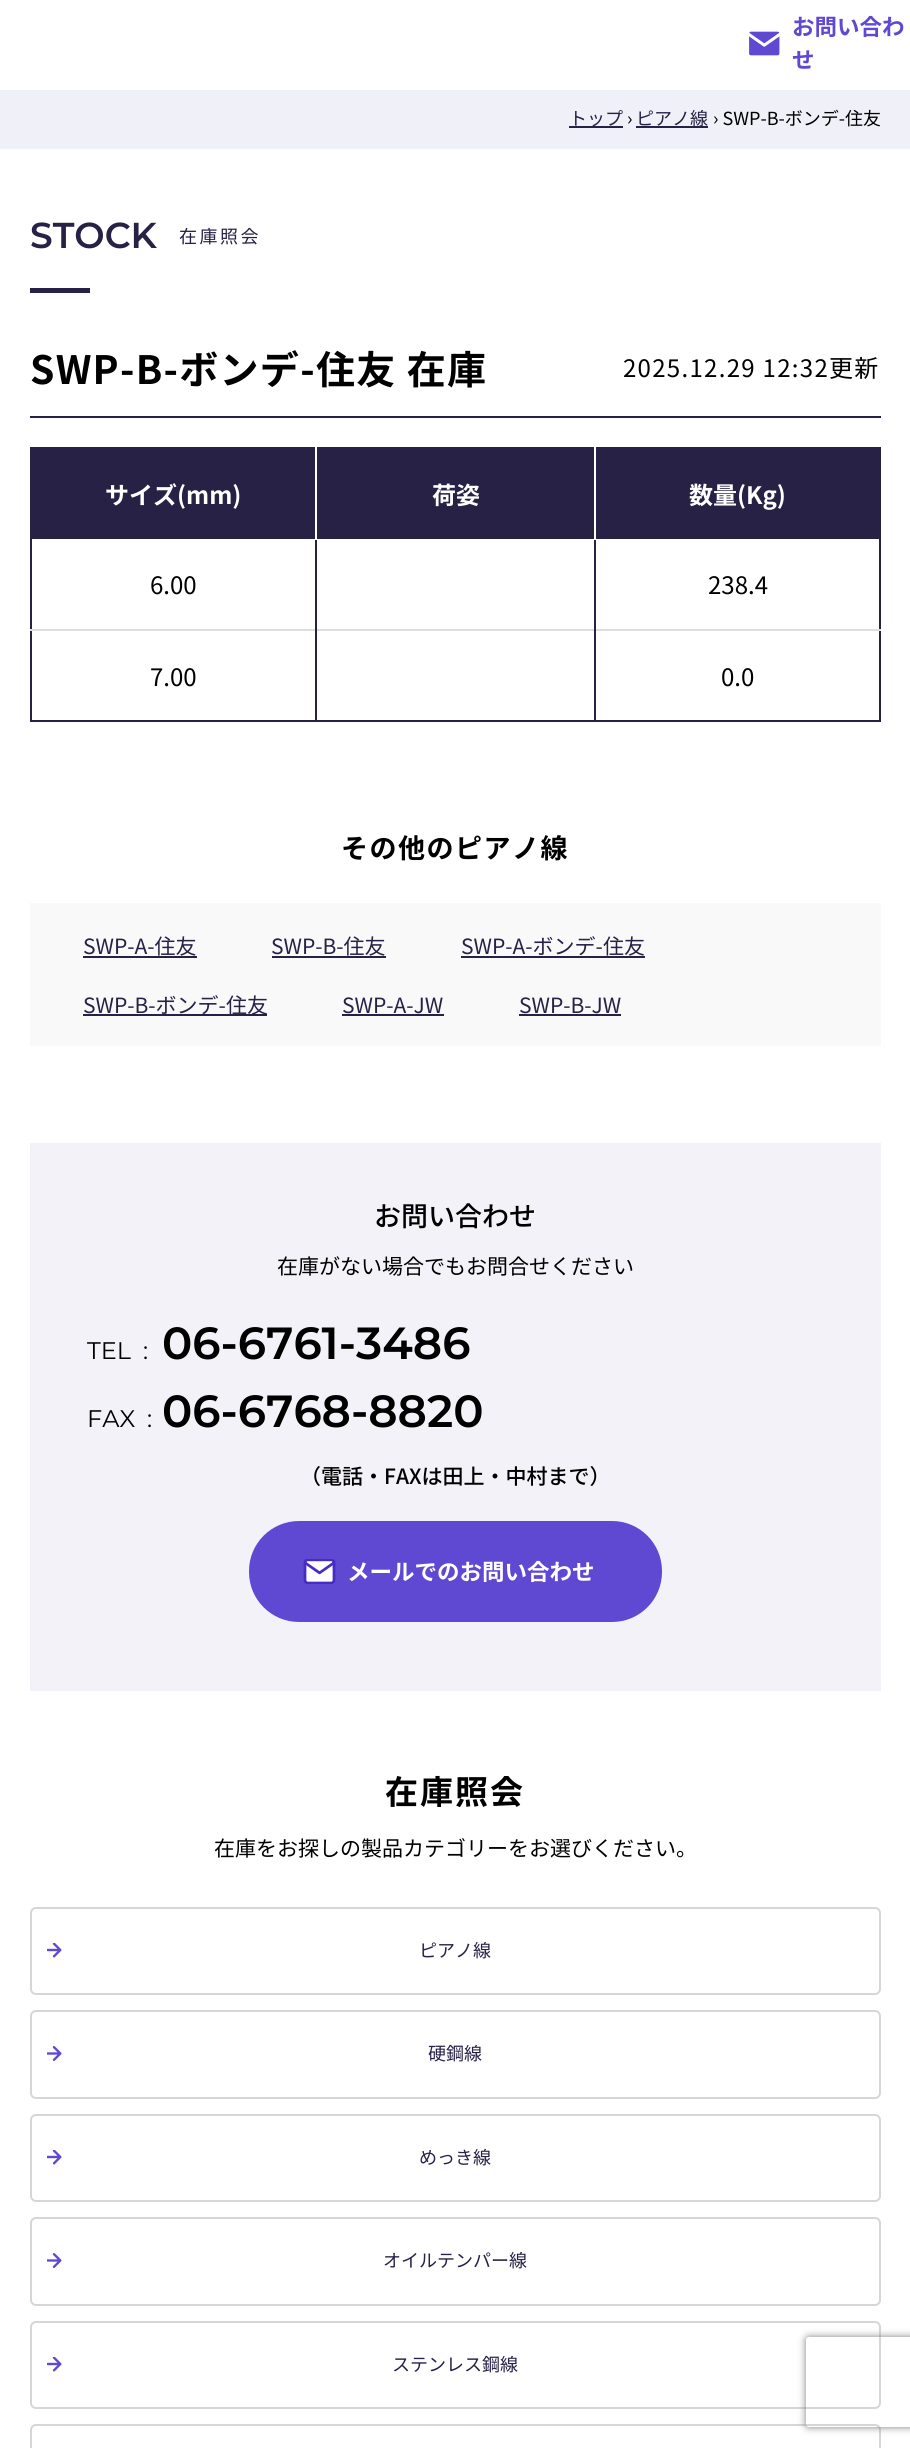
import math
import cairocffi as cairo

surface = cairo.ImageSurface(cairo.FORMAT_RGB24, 910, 2448)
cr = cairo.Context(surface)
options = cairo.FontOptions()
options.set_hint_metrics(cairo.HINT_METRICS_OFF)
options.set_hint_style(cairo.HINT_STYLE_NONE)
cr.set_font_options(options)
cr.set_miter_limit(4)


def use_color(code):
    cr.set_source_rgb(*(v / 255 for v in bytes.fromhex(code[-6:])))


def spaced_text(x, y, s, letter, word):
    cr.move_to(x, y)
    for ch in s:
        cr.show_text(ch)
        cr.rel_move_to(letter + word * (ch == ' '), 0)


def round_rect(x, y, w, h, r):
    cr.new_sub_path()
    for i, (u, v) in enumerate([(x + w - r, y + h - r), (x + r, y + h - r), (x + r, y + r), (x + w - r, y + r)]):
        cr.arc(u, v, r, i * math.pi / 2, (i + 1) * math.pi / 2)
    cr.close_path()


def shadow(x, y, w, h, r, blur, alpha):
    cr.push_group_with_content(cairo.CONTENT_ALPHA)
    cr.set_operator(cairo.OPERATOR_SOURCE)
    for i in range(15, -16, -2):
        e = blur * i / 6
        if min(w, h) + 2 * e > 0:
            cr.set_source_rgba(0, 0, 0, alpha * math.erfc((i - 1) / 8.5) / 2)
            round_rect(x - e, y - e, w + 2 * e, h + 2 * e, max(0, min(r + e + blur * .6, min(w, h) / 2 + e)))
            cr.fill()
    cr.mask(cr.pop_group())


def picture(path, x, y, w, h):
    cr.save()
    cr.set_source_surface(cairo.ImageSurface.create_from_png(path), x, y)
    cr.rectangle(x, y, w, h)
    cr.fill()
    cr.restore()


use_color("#ffffff")
cr.paint()
picture("img1.png", 749, 31, 31, 25)
cr.select_font_face("Noto Sans JP", cairo.FONT_SLANT_NORMAL, cairo.FONT_WEIGHT_BOLD)
cr.set_font_size(22.5)
use_color("#5f49d3")
cr.move_to(792, 35)
cr.show_text("お問い合わ")
cr.move_to(792, 68)
cr.show_text("せ")
use_color("#f0f0f9")
cr.rectangle(0, 90, 910, 59)
cr.fill()
use_color("#272146")
cr.rectangle(569, 126, 54, 2)
cr.fill()
cr.select_font_face("Noto Sans JP")
cr.set_font_size(18)
cr.move_to(569, 125)
cr.show_text("トップ")
use_color("#000000")
cr.move_to(627, 125)
cr.show_text("›")
use_color("#272146")
cr.rectangle(636, 126, 72, 2)
cr.fill()
cr.move_to(636, 125)
cr.show_text("ピアノ線")
use_color("#000000")
cr.move_to(713, 125)
cr.show_text("› SWP-B-ボンデ-住友")
cr.select_font_face("Montserrat SemiBold")
cr.set_font_size(36)
use_color("#272146")
cr.move_to(30, 248)
cr.show_text("STOCK")
cr.select_font_face("Noto Sans JP")
cr.set_font_size(18)
spaced_text(179, 243, "在庫照会", 2.5, 0)
cr.rectangle(30, 288, 60, 5)
cr.fill()
cr.rectangle(30, 416, 851, 2)
cr.fill()
cr.select_font_face("Noto Sans JP", cairo.FONT_SLANT_NORMAL, cairo.FONT_WEIGHT_BOLD)
cr.set_font_size(39)
use_color("#000000")
spaced_text(30, 384, "SWP-B-ボンデ-住友 在庫", 1.3, 0)
cr.select_font_face("Noto Sans JP")
cr.set_font_size(24)
spaced_text(623, 377, "2025.12.29 12:32更新", 1.3, 0)
use_color("#272146")
cr.rectangle(30, 447, 851, 2)
cr.fill()
cr.rectangle(879, 447, 2, 275)
cr.fill()
cr.rectangle(30, 720, 851, 2)
cr.fill()
cr.rectangle(30, 447, 2, 275)
cr.fill()
cr.rectangle(32, 449, 283, 90)
cr.fill()
cr.select_font_face("Noto Sans JP", cairo.FONT_SLANT_NORMAL, cairo.FONT_WEIGHT_BOLD)
use_color("#ffffff")
cr.move_to(105, 504)
cr.show_text("サイズ(mm)")
use_color("#272146")
cr.rectangle(317, 449, 277, 90)
cr.fill()
use_color("#dddddd")
cr.rectangle(30, 629, 851, 2)
cr.fill()
use_color("#272146")
cr.rectangle(315, 539, 2, 183)
cr.fill()
use_color("#ffffff")
cr.rectangle(315, 447, 2, 93)
cr.fill()
cr.move_to(432, 504)
cr.show_text("荷姿")
use_color("#272146")
cr.rectangle(596, 449, 283, 90)
cr.fill()
cr.rectangle(594, 539, 2, 183)
cr.fill()
use_color("#ffffff")
cr.rectangle(594, 447, 2, 93)
cr.fill()
cr.move_to(689, 504)
cr.show_text("数量(Kg)")
cr.select_font_face("Noto Sans JP")
use_color("#000000")
cr.move_to(150, 594)
cr.show_text("6.00")
cr.move_to(708, 594)
cr.show_text("238.4")
cr.move_to(150, 686)
cr.show_text("7.00")
cr.move_to(721, 686)
cr.show_text("0.0")
cr.select_font_face("Noto Sans JP", cairo.FONT_SLANT_NORMAL, cairo.FONT_WEIGHT_BOLD)
cr.set_font_size(27)
spaced_text(341, 858, "その他のピアノ線", 1.5, 0)
use_color("#f9f9f9")
cr.rectangle(30, 903, 851, 143)
cr.fill()
cr.select_font_face("Noto Sans JP")
cr.set_font_size(21)
use_color("#272146")
cr.move_to(83, 954)
cr.show_text("SWP-A-住友")
cr.rectangle(83, 956, 114, 2)
cr.fill()
cr.move_to(271, 954)
cr.show_text("SWP-B-住友")
cr.rectangle(272, 956, 114, 2)
cr.fill()
cr.move_to(461, 954)
cr.show_text("SWP-A-ボンデ-住友")
cr.rectangle(461, 956, 184, 2)
cr.fill()
cr.rectangle(83, 1014, 184, 2)
cr.fill()
cr.move_to(83, 1013)
cr.show_text("SWP-B-ボンデ-住友")
cr.move_to(342, 1013)
cr.show_text("SWP-A-JW")
cr.rectangle(342, 1014, 102, 2)
cr.fill()
cr.move_to(519, 1013)
cr.show_text("SWP-B-JW")
cr.rectangle(519, 1014, 102, 2)
cr.fill()
use_color("#f2f2f8")
cr.rectangle(30, 1143, 851, 548)
cr.fill()
cr.select_font_face("Noto Sans JP Medium")
cr.set_font_size(27)
use_color("#000000")
cr.move_to(374, 1226)
cr.show_text("お問い合わせ")
cr.select_font_face("Noto Sans JP")
cr.set_font_size(21)
cr.move_to(277, 1274)
cr.show_text("在庫がない場合でもお問合せください")
cr.select_font_face("Montserrat")
cr.set_font_size(24)
cr.move_to(87, 1359)
cr.show_text("TEL")
cr.move_to(143, 1359)
cr.show_text(":")
cr.select_font_face("Montserrat SemiBold")
cr.set_font_size(45)
cr.move_to(162, 1359)
cr.show_text("06-6761-3486")
cr.select_font_face("Montserrat")
cr.set_font_size(24)
cr.move_to(87, 1427)
cr.show_text("FAX")
cr.move_to(147, 1427)
cr.show_text(":")
cr.select_font_face("Montserrat SemiBold")
cr.set_font_size(45)
cr.move_to(162, 1427)
cr.show_text("06-6768-8820")
cr.select_font_face("Noto Sans JP Medium")
cr.set_font_size(21)
cr.move_to(300, 1484)
cr.show_text("（電話・FAXは田上・中村まで）")
use_color("#5f49d3")
round_rect(249, 1521, 413, 101, 50)
cr.fill()
picture("img2.png", 303, 1559, 33, 25)
cr.select_font_face("Noto Sans JP", cairo.FONT_SLANT_NORMAL, cairo.FONT_WEIGHT_BOLD)
cr.set_font_size(22.5)
use_color("#ffffff")
cr.move_to(347, 1580)
cr.show_text("メールでのお問い合わせ")
cr.set_font_size(33)
use_color("#000000")
spaced_text(385, 1804, "在庫照会", 2, 0)
cr.select_font_face("Noto Sans JP")
cr.set_font_size(21)
cr.move_to(214, 1856)
cr.show_text("在庫をお探しの製品カテゴリーをお選びください。")
picture("img3.png", 47, 1943, 15, 15)
round_rect(31, 1908, 849, 86, 5)
use_color("#d6d6d6")
cr.stroke()
cr.set_font_size(18)
use_color("#272146")
cr.move_to(419, 1957)
cr.show_text("ピアノ線")
picture("img4.png", 47, 2046, 15, 15)
round_rect(31, 2011, 849, 87, 5)
use_color("#d6d6d6")
cr.stroke()
use_color("#272146")
cr.move_to(428, 2060)
cr.show_text("硬鋼線")
picture("img3.png", 47, 2150, 15, 15)
round_rect(31, 2115, 849, 86, 5)
use_color("#d6d6d6")
cr.stroke()
use_color("#272146")
cr.move_to(419, 2164)
cr.show_text("めっき線")
picture("img4.png", 47, 2253, 15, 15)
round_rect(31, 2218, 849, 87, 5)
use_color("#d6d6d6")
cr.stroke()
use_color("#272146")
cr.move_to(383, 2267)
cr.show_text("オイルテンパー線")
picture("img3.png", 47, 2357, 15, 15)
round_rect(31, 2322, 849, 86, 5)
use_color("#d6d6d6")
cr.stroke()
use_color("#272146")
cr.move_to(392, 2371)
cr.show_text("ステンレス鋼線")
round_rect(31, 2425, 849, 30, 5)
use_color("#d6d6d6")
cr.stroke()
cr.save()
cr.set_fill_rule(cairo.FILL_RULE_EVEN_ODD)
cr.new_path()
cr.move_to(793, 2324)
cr.line_to(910, 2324)
cr.line_to(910, 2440)
cr.line_to(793, 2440)
cr.close_path()
cr.move_to(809, 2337)
cr.line_to(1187, 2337)
cr.curve_to(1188.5, 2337, 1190, 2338.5, 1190, 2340)
cr.line_to(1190, 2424)
cr.curve_to(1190, 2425.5, 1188.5, 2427, 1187, 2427)
cr.line_to(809, 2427)
cr.curve_to(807.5, 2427, 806, 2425.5, 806, 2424)
cr.line_to(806, 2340)
cr.curve_to(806, 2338.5, 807.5, 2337, 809, 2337)
cr.close_path()
cr.clip()
use_color("#808080")
shadow(806, 2337, 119, 90, 3, 4, 1)
cr.restore()
surface.write_to_png("result.png")
